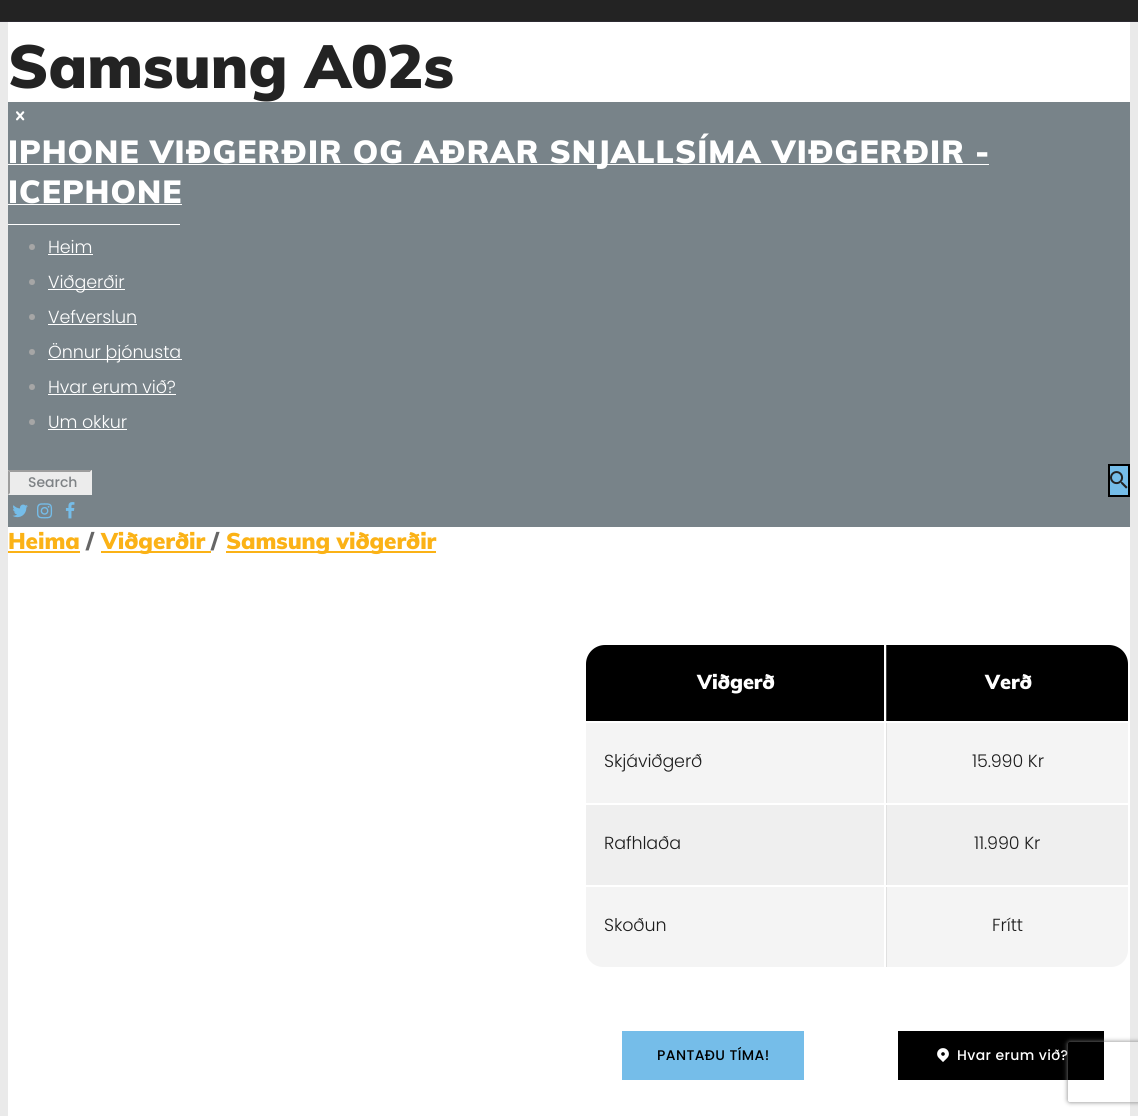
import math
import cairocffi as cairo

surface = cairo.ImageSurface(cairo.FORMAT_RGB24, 1138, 1116)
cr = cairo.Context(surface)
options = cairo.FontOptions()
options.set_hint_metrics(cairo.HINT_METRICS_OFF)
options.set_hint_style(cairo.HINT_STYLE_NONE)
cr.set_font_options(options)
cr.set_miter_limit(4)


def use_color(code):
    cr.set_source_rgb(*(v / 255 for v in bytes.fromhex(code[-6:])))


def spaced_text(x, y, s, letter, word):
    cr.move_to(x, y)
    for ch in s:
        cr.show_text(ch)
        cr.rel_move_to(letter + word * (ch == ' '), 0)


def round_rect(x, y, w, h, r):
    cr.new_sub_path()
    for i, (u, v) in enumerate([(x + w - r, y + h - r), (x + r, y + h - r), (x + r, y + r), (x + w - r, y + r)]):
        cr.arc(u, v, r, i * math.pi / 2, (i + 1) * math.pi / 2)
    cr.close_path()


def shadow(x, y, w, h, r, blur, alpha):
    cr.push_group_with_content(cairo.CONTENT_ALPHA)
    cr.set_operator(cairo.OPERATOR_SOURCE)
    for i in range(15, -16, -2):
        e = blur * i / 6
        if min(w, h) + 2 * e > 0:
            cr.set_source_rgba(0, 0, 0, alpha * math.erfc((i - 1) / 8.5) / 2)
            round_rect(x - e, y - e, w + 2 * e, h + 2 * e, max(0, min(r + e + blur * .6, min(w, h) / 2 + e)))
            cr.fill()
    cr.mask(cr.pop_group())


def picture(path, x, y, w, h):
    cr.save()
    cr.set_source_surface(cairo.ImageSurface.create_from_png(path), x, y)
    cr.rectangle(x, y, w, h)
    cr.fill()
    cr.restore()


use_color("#eaeaea")
cr.paint()
use_color("#ffffff")
cr.rectangle(8, 22, 1122, 1094)
cr.fill()
use_color("#232323")
cr.rectangle(0, 0, 1138, 21)
cr.fill()
use_color("#2e2c33")
cr.rectangle(0, 21, 1138, 1)
cr.fill()
cr.select_font_face("Muli Black")
cr.set_font_size(60.25)
use_color("#232323")
cr.move_to(8, 88)
cr.show_text("Samsung A02s")
use_color("#788389")
cr.rectangle(8, 102, 1122, 425)
cr.fill()
picture("img1.png", 16, 111, 9, 10)
use_color("#ffffff")
cr.rectangle(8, 164, 981, 1)
cr.fill()
cr.set_font_size(31.7)
spaced_text(8, 163, "IPHONE VIÐGERÐIR OG AÐRAR SNJALLSÍMA VIÐGERÐIR -", 1, 0)
spaced_text(8, 203, "ICEPHONE", 1, 0)
cr.rectangle(8, 204, 174, 1)
cr.fill()
cr.rectangle(8, 224, 172, 1)
cr.fill()
use_color("#a6a6a6")
cr.arc(32, 247, 3, 0, 2 * math.pi)
cr.fill()
cr.select_font_face("Poppins Light")
cr.set_font_size(17.5)
use_color("#ffffff")
spaced_text(48, 253, "Heim", -0.1, 0)
cr.rectangle(48, 254, 45, 1)
cr.fill()
use_color("#a6a6a6")
cr.arc(32, 282, 3, 0, 2 * math.pi)
cr.fill()
use_color("#ffffff")
cr.rectangle(48, 289, 77, 1)
cr.fill()
spaced_text(48, 288, "Viðgerðir", -0.1, 0)
use_color("#a6a6a6")
cr.new_path()
cr.arc(32, 317, 3, 0, 2 * math.pi)
cr.fill()
use_color("#ffffff")
spaced_text(48, 323, "Vefverslun", -0.1, 0)
cr.rectangle(48, 324, 89, 1)
cr.fill()
use_color("#a6a6a6")
cr.arc(32, 352, 3, 0, 2 * math.pi)
cr.fill()
use_color("#ffffff")
cr.rectangle(48, 359, 134, 1)
cr.fill()
spaced_text(48, 358, "Önnur þjónusta", -0.1, 0)
use_color("#a6a6a6")
cr.new_path()
cr.arc(32, 387, 3, 0, 2 * math.pi)
cr.fill()
use_color("#ffffff")
spaced_text(48, 393, "Hvar erum við?", -0.1, 0)
cr.rectangle(48, 394, 128, 1)
cr.fill()
use_color("#a6a6a6")
cr.arc(32, 422, 3, 0, 2 * math.pi)
cr.fill()
use_color("#ffffff")
spaced_text(48, 428, "Um okkur", -0.1, 0)
cr.rectangle(48, 429, 79, 1)
cr.fill()
use_color("#ececec")
cr.rectangle(8, 470, 84, 25)
cr.fill()
use_color("#9d9d9d")
cr.new_path()
cr.move_to(8, 470)
cr.line_to(92, 470)
cr.line_to(90, 472)
cr.line_to(10, 472)
cr.close_path()
cr.fill()
use_color("#ececec")
cr.new_path()
cr.move_to(92, 470)
cr.line_to(92, 495)
cr.line_to(90, 493)
cr.line_to(90, 472)
cr.close_path()
cr.fill()
use_color("#9d9d9d")
cr.new_path()
cr.move_to(8, 495)
cr.line_to(8, 470)
cr.line_to(10, 472)
cr.line_to(10, 493)
cr.close_path()
cr.fill()
cr.select_font_face("Poppins Medium")
cr.set_font_size(14)
use_color("#7e8285")
cr.move_to(28, 487)
cr.show_text("Search")
use_color("#75bde9")
cr.rectangle(1109, 465, 20, 31)
cr.fill_preserve()
use_color("#000000")
cr.stroke()
picture("img2.png", 1110, 471, 18, 18)
picture("img3.png", 12, 504, 16, 14)
picture("img4.png", 37, 503, 16, 16)
picture("img5.png", 65, 502, 10, 17)
cr.select_font_face("Muli Black")
cr.set_font_size(22.6)
use_color("#fbb216")
spaced_text(8, 549, "Heima", -0.1, 0)
cr.rectangle(8, 551, 72, 2)
cr.fill()
use_color("#666666")
spaced_text(86, 549, "/", -0.1, 0)
use_color("#fbb216")
cr.rectangle(101, 551, 110, 2)
cr.fill()
spaced_text(101, 549, "Viðgerðir", -0.1, 0)
use_color("#666666")
spaced_text(211, 549, "/", -0.1, 0)
use_color("#fbb216")
cr.rectangle(226, 551, 210, 2)
cr.fill()
spaced_text(226, 549, "Samsung viðgerðir", -0.1, 0)
use_color("#000000")
cr.new_path()
cr.move_to(605, 645)
cr.line_to(884, 645)
cr.line_to(884, 721)
cr.line_to(586, 721)
cr.line_to(586, 664)
cr.curve_to(586, 653.5, 594.5, 645, 605, 645)
cr.close_path()
cr.fill()
cr.set_font_size(20)
use_color("#ffffff")
spaced_text(697, 689, "Viðgerð", -0.1, 0)
use_color("#000000")
cr.new_path()
cr.move_to(886, 645)
cr.line_to(1109, 645)
cr.curve_to(1119.5, 645, 1128, 653.5, 1128, 664)
cr.line_to(1128, 721)
cr.line_to(886, 721)
cr.close_path()
cr.fill()
use_color("#3d3d3d")
cr.rectangle(886, 645, 1, 76)
cr.fill()
use_color("#ffffff")
spaced_text(985, 689, "Verð", -0.1, 0)
use_color("#f4f4f4")
cr.rectangle(586, 723, 298, 80)
cr.fill()
cr.select_font_face("Poppins Light")
cr.set_font_size(17.5)
use_color("#1d1d1d")
spaced_text(604, 767, "Skjáviðgerð", -0.1, 0)
use_color("#f4f4f4")
cr.rectangle(887, 723, 241, 80)
cr.fill()
use_color("#e0e0e0")
cr.rectangle(886, 723, 1, 80)
cr.fill()
use_color("#1d1d1d")
spaced_text(972, 767, "15.990 Kr", -0.1, 0)
use_color("#efefef")
cr.rectangle(586, 805, 298, 80)
cr.fill()
use_color("#1d1d1d")
spaced_text(604, 849, "Rafhlaða", -0.1, 0)
use_color("#efefef")
cr.rectangle(887, 805, 241, 80)
cr.fill()
use_color("#e0e0e0")
cr.rectangle(886, 805, 1, 80)
cr.fill()
use_color("#1d1d1d")
spaced_text(974, 849, "11.990 Kr", -0.1, 0)
use_color("#f4f4f4")
cr.new_path()
cr.move_to(586, 887)
cr.line_to(884, 887)
cr.line_to(884, 967)
cr.line_to(603, 967)
cr.curve_to(593.5, 967, 586, 959.5, 586, 950)
cr.close_path()
cr.fill()
use_color("#1d1d1d")
spaced_text(604, 931, "Skoðun", -0.1, 0)
use_color("#f4f4f4")
cr.new_path()
cr.move_to(886, 887)
cr.line_to(1128, 887)
cr.line_to(1128, 950)
cr.curve_to(1128, 959.5, 1120.5, 967, 1111, 967)
cr.line_to(886, 967)
cr.close_path()
cr.fill()
use_color("#e0e0e0")
cr.rectangle(886, 887, 1, 80)
cr.fill()
use_color("#1d1d1d")
spaced_text(992, 931, "Frítt", -0.1, 0)
use_color("#75bde9")
cr.rectangle(622, 1031, 182, 49)
cr.fill()
cr.select_font_face("Poppins Medium")
cr.set_font_size(14)
use_color("#000000")
spaced_text(657, 1060, "PANTAÐU TÍMA!", 0.4, 0)
cr.rectangle(898, 1031, 206, 49)
cr.fill()
picture("img6.png", 937, 1048, 12, 14)
use_color("#ffffff")
spaced_text(957, 1060, "Hvar erum við?", 0.4, 0)
cr.save()
cr.set_fill_rule(cairo.FILL_RULE_EVEN_ODD)
cr.new_path()
cr.move_to(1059, 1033)
cr.line_to(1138, 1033)
cr.line_to(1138, 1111)
cr.line_to(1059, 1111)
cr.close_path()
cr.move_to(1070, 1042)
cr.line_to(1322, 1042)
cr.curve_to(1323, 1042, 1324, 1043, 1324, 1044)
cr.line_to(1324, 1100)
cr.curve_to(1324, 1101, 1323, 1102, 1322, 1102)
cr.line_to(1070, 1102)
cr.curve_to(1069, 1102, 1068, 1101, 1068, 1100)
cr.line_to(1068, 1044)
cr.curve_to(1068, 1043, 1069, 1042, 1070, 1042)
cr.close_path()
cr.clip()
use_color("#808080")
shadow(1068, 1042, 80, 60, 2, 2.5, 1)
cr.restore()
surface.write_to_png("result.png")
